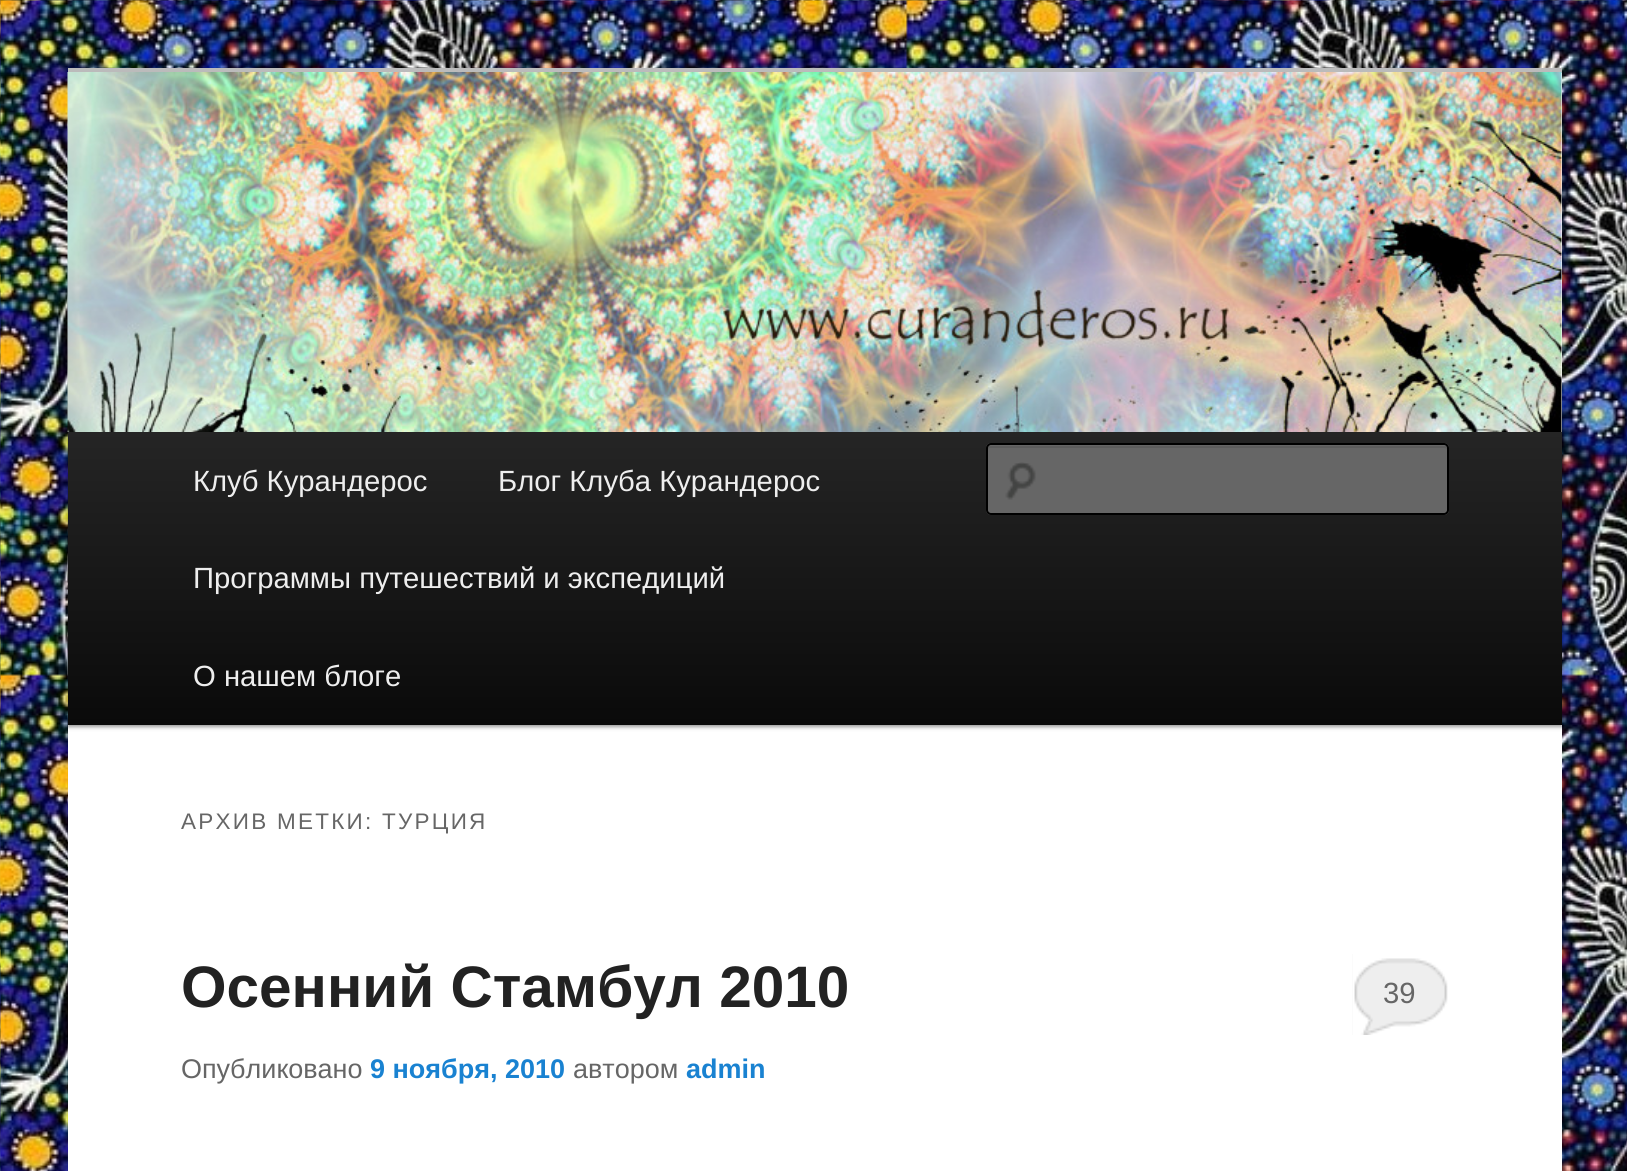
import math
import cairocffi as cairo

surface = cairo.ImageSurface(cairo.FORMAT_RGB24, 1627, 1171)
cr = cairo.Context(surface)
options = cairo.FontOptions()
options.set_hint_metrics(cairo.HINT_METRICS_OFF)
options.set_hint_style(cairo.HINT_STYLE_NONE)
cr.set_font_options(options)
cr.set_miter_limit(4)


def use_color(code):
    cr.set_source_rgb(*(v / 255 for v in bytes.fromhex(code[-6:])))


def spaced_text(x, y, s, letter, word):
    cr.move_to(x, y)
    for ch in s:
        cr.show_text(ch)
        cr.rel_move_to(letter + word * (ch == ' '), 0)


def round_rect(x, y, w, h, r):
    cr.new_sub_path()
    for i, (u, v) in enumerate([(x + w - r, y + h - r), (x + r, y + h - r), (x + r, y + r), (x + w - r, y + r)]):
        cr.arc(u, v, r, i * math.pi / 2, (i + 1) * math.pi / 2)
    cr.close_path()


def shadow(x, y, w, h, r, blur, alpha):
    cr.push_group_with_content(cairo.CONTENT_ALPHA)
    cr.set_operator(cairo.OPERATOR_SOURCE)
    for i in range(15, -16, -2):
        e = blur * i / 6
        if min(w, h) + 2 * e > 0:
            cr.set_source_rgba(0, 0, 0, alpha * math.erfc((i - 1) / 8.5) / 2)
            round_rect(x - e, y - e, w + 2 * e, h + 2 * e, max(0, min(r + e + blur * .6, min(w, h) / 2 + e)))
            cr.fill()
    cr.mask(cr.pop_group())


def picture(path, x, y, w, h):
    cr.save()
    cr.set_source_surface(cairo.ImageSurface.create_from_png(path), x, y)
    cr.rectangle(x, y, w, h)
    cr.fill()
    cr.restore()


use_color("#ffffff")
cr.paint()
picture("img1.png", 0, 0, 1627, 1171)
use_color("#ffffff")
cr.rectangle(68, 73, 1494, 1098)
cr.fill()
use_color("#bbbbbb")
cr.rectangle(68, 68, 1494, 5)
cr.fill()
use_color("#000000")
shadow(68, 434, 1494, 293, 0, 2, 0.4)
picture("img2.png", 67, 72, 1495, 360)
gradient = cairo.LinearGradient(815, 432, 815, 725)
gradient.add_color_stop_rgba(0, 0.145, 0.145, 0.145, 1)
gradient.add_color_stop_rgba(1, 0.039, 0.039, 0.039, 1)
cr.set_source(gradient)
cr.rectangle(68, 432, 1494, 293)
cr.fill()
cr.select_font_face("Liberation Sans")
cr.set_font_size(29.25)
use_color("#eeeeee")
cr.move_to(193, 491)
cr.show_text("Клуб Курандерос")
cr.move_to(498, 491)
cr.show_text("Блог Клуба Курандерос")
cr.move_to(193, 588)
cr.show_text("Программы путешествий и экспедиций")
cr.move_to(193, 686)
cr.show_text("О нашем блоге")
use_color("#666666")
round_rect(986, 443, 463, 72, 5)
cr.fill()
picture("img3.png", 1005, 462, 31, 38)
use_color("#5c5c5c")
cr.new_path()
cr.move_to(990, 448)
cr.line_to(1444, 448)
cr.curve_to(1446, 448, 1447, 449, 1447, 450)
cr.curve_to(1447, 448, 1447, 446, 1445, 446)
cr.line_to(989, 446)
cr.line_to(988, 447)
cr.line_to(988, 450)
cr.curve_to(988, 449, 989, 448, 990, 448)
cr.close_path()
cr.fill()
round_rect(987, 444, 461, 70, 4)
use_color("#000000")
cr.stroke()
cr.set_font_size(22.5)
use_color("#666666")
spaced_text(181, 829, "АРХИВ МЕТКИ: ТУРЦИЯ", 2.25, 0)
cr.select_font_face("Liberation Sans", cairo.FONT_SLANT_NORMAL, cairo.FONT_WEIGHT_BOLD)
cr.set_font_size(58.5)
use_color("#222222")
cr.move_to(181, 1007)
cr.show_text("Осенний Стамбул 2010")
use_color("#eeeeee")
cr.rectangle(1352, 954, 96, 81)
cr.fill()
picture("img4.png", 1352, 954, 97, 81)
cr.select_font_face("Liberation Sans")
cr.set_font_size(29.25)
use_color("#666666")
cr.move_to(1383, 1003)
cr.show_text("39")
cr.set_font_size(27)
cr.move_to(181, 1078)
cr.show_text("Опубликовано")
cr.select_font_face("Liberation Sans", cairo.FONT_SLANT_NORMAL, cairo.FONT_WEIGHT_BOLD)
use_color("#1982d1")
cr.move_to(370, 1078)
cr.show_text("9 ноября, 2010")
cr.select_font_face("Liberation Sans")
use_color("#666666")
cr.move_to(573, 1078)
cr.show_text("автором")
cr.select_font_face("Liberation Sans", cairo.FONT_SLANT_NORMAL, cairo.FONT_WEIGHT_BOLD)
use_color("#1982d1")
cr.move_to(686, 1078)
cr.show_text("admin")
surface.write_to_png("result.png")
